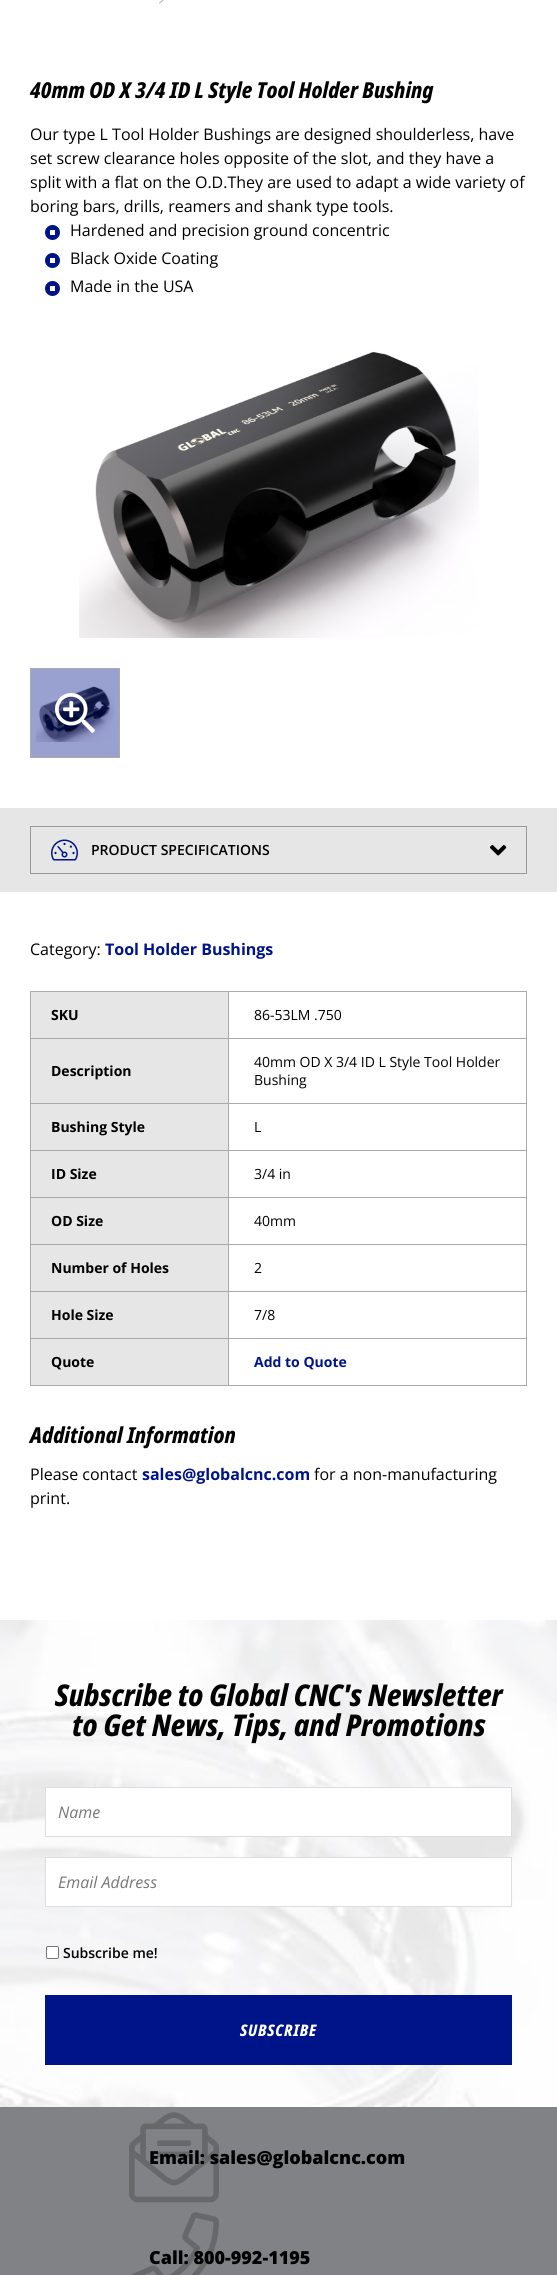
import math
import cairocffi as cairo

surface = cairo.ImageSurface(cairo.FORMAT_RGB24, 557, 2275)
cr = cairo.Context(surface)
options = cairo.FontOptions()
options.set_hint_metrics(cairo.HINT_METRICS_OFF)
options.set_hint_style(cairo.HINT_STYLE_NONE)
cr.set_font_options(options)
cr.set_miter_limit(4)


def use_color(code):
    cr.set_source_rgb(*(v / 255 for v in bytes.fromhex(code[-6:])))


def spaced_text(x, y, s, letter, word):
    cr.move_to(x, y)
    for ch in s:
        cr.show_text(ch)
        cr.rel_move_to(letter + word * (ch == ' '), 0)


def round_rect(x, y, w, h, r):
    cr.new_sub_path()
    for i, (u, v) in enumerate([(x + w - r, y + h - r), (x + r, y + h - r), (x + r, y + r), (x + w - r, y + r)]):
        cr.arc(u, v, r, i * math.pi / 2, (i + 1) * math.pi / 2)
    cr.close_path()


def picture(path, x, y, w, h):
    cr.save()
    cr.set_source_surface(cairo.ImageSurface.create_from_png(path), x, y)
    cr.rectangle(x, y, w, h)
    cr.fill()
    cr.restore()


use_color("#ffffff")
cr.paint()
picture("img1.png", 159, 0, 5, 4)
cr.select_font_face("Noto Sans ExtraBold", cairo.FONT_SLANT_ITALIC)
cr.set_font_size(22)
use_color("#000000")
cr.move_to(30, 98)
cr.show_text("40mm OD X 3/4 ID L Style Tool Holder Bushing")
cr.select_font_face("Open Sans")
cr.set_font_size(16)
cr.move_to(30, 140)
cr.show_text("Our type L Tool Holder Bushings are designed shoulderless, have")
cr.move_to(30, 164)
cr.show_text("set screw clearance holes opposite of the slot, and they have a")
cr.move_to(30, 188)
cr.show_text("split with a flat on the O.D.They are used to adapt a wide variety of")
cr.move_to(30, 212)
cr.show_text("boring bars, drills, reamers and shank type tools.")
use_color("#001489")
cr.new_path()
cr.arc(52.5, 232.5, 7.5, 0, 2 * math.pi)
cr.fill()
use_color("#000000")
cr.move_to(70, 236)
cr.show_text("Hardened and precision ground concentric")
use_color("#ffffff")
cr.rectangle(50, 230, 5, 5)
cr.fill()
use_color("#001489")
cr.arc(52.5, 260.5, 7.5, 0, 2 * math.pi)
cr.fill()
use_color("#000000")
cr.move_to(70, 264)
cr.show_text("Black Oxide Coating")
use_color("#ffffff")
cr.rectangle(50, 258, 5, 5)
cr.fill()
use_color("#001489")
cr.arc(52.5, 288.5, 7.5, 0, 2 * math.pi)
cr.fill()
use_color("#000000")
cr.move_to(70, 292)
cr.show_text("Made in the USA")
use_color("#ffffff")
cr.rectangle(50, 286, 5, 5)
cr.fill()
picture("img2.png", 79, 351, 400, 287)
use_color("#99a1d0")
cr.rectangle(30.5, 668.5, 89, 89)
cr.fill_preserve()
use_color("#aaaaaa")
cr.set_line_width(1)
cr.stroke()
picture("img3.png", 36, 686, 78, 56)
picture("img4.png", 55, 693, 40, 40)
use_color("#e6e6e6")
cr.rectangle(0, 808, 557, 84)
cr.fill()
cr.rectangle(30.5, 826.5, 496, 47)
use_color("#999999")
cr.stroke()
picture("img5.png", 51, 839, 27, 22)
cr.select_font_face("Open Sans SemiBold")
cr.set_font_size(14)
use_color("#000000")
cr.move_to(91, 855)
cr.show_text("PRODUCT SPECIFICATIONS")
picture("img6.png", 490, 845, 17, 11)
cr.select_font_face("Open Sans")
cr.set_font_size(16)
cr.move_to(30, 955)
cr.show_text("Category:")
cr.select_font_face("Open Sans", cairo.FONT_SLANT_NORMAL, cairo.FONT_WEIGHT_BOLD)
use_color("#001489")
cr.move_to(105, 955)
cr.show_text("Tool Holder Bushings")
cr.rectangle(30.5, 991.5, 496, 394)
use_color("#aaaaaa")
cr.stroke()
cr.rectangle(31, 1038, 495, 1)
cr.fill()
use_color("#e6e6e6")
cr.rectangle(31, 992, 197, 46)
cr.fill()
use_color("#aaaaaa")
cr.rectangle(228, 992, 1, 46)
cr.fill()
cr.set_font_size(14)
use_color("#000000")
cr.move_to(51, 1020)
cr.show_text("SKU")
cr.select_font_face("Open Sans")
cr.move_to(254, 1020)
cr.show_text("86-53LM .750")
use_color("#aaaaaa")
cr.rectangle(31, 1103, 495, 1)
cr.fill()
use_color("#e6e6e6")
cr.rectangle(31, 1039, 197, 64)
cr.fill()
use_color("#aaaaaa")
cr.rectangle(228, 1039, 1, 64)
cr.fill()
cr.select_font_face("Open Sans", cairo.FONT_SLANT_NORMAL, cairo.FONT_WEIGHT_BOLD)
use_color("#000000")
cr.move_to(51, 1076)
cr.show_text("Description")
cr.select_font_face("Open Sans")
cr.move_to(254, 1067)
cr.show_text("40mm OD X 3/4 ID L Style Tool Holder")
cr.move_to(254, 1085)
cr.show_text("Bushing")
use_color("#aaaaaa")
cr.rectangle(31, 1150, 495, 1)
cr.fill()
use_color("#e6e6e6")
cr.rectangle(31, 1104, 197, 46)
cr.fill()
use_color("#aaaaaa")
cr.rectangle(228, 1104, 1, 46)
cr.fill()
cr.select_font_face("Open Sans", cairo.FONT_SLANT_NORMAL, cairo.FONT_WEIGHT_BOLD)
use_color("#000000")
cr.move_to(51, 1132)
cr.show_text("Bushing Style")
cr.select_font_face("Open Sans")
cr.move_to(254, 1132)
cr.show_text("L")
use_color("#aaaaaa")
cr.rectangle(31, 1197, 495, 1)
cr.fill()
use_color("#e6e6e6")
cr.rectangle(31, 1151, 197, 46)
cr.fill()
use_color("#aaaaaa")
cr.rectangle(228, 1151, 1, 46)
cr.fill()
cr.select_font_face("Open Sans", cairo.FONT_SLANT_NORMAL, cairo.FONT_WEIGHT_BOLD)
use_color("#000000")
cr.move_to(51, 1179)
cr.show_text("ID Size")
cr.select_font_face("Open Sans")
cr.move_to(254, 1179)
cr.show_text("3/4 in")
use_color("#aaaaaa")
cr.rectangle(31, 1244, 495, 1)
cr.fill()
use_color("#e6e6e6")
cr.rectangle(31, 1198, 197, 46)
cr.fill()
use_color("#aaaaaa")
cr.rectangle(228, 1198, 1, 46)
cr.fill()
cr.select_font_face("Open Sans", cairo.FONT_SLANT_NORMAL, cairo.FONT_WEIGHT_BOLD)
use_color("#000000")
cr.move_to(51, 1226)
cr.show_text("OD Size")
cr.select_font_face("Open Sans")
cr.move_to(254, 1226)
cr.show_text("40mm")
use_color("#aaaaaa")
cr.rectangle(31, 1291, 495, 1)
cr.fill()
use_color("#e6e6e6")
cr.rectangle(31, 1245, 197, 46)
cr.fill()
use_color("#aaaaaa")
cr.rectangle(228, 1245, 1, 46)
cr.fill()
cr.select_font_face("Open Sans", cairo.FONT_SLANT_NORMAL, cairo.FONT_WEIGHT_BOLD)
use_color("#000000")
cr.move_to(51, 1273)
cr.show_text("Number of Holes")
cr.select_font_face("Open Sans")
cr.move_to(254, 1273)
cr.show_text("2")
use_color("#aaaaaa")
cr.rectangle(31, 1338, 495, 1)
cr.fill()
use_color("#e6e6e6")
cr.rectangle(31, 1292, 197, 46)
cr.fill()
use_color("#aaaaaa")
cr.rectangle(228, 1292, 1, 46)
cr.fill()
cr.select_font_face("Open Sans", cairo.FONT_SLANT_NORMAL, cairo.FONT_WEIGHT_BOLD)
use_color("#000000")
cr.move_to(51, 1320)
cr.show_text("Hole Size")
cr.select_font_face("Open Sans")
cr.move_to(254, 1320)
cr.show_text("7/8")
use_color("#e6e6e6")
cr.rectangle(31, 1339, 197, 46)
cr.fill()
use_color("#aaaaaa")
cr.rectangle(228, 1339, 1, 46)
cr.fill()
cr.select_font_face("Open Sans", cairo.FONT_SLANT_NORMAL, cairo.FONT_WEIGHT_BOLD)
use_color("#000000")
cr.move_to(51, 1367)
cr.show_text("Quote")
use_color("#001489")
cr.move_to(254, 1367)
cr.show_text("Add to Quote")
cr.select_font_face("Noto Sans ExtraBold", cairo.FONT_SLANT_ITALIC)
cr.set_font_size(22)
use_color("#000000")
cr.move_to(30, 1443)
cr.show_text("Additional Information")
cr.select_font_face("Open Sans")
cr.set_font_size(16)
cr.move_to(30, 1480)
cr.show_text("Please contact")
cr.select_font_face("Open Sans", cairo.FONT_SLANT_NORMAL, cairo.FONT_WEIGHT_BOLD)
use_color("#001489")
cr.move_to(142, 1480)
cr.show_text("sales@globalcnc.com")
cr.select_font_face("Open Sans")
use_color("#000000")
cr.move_to(314, 1480)
cr.show_text("for a non-manufacturing")
cr.move_to(30, 1504)
cr.show_text("print.")
picture("img7.png", 0, 1620, 557, 487)
cr.select_font_face("Noto Sans ExtraBold", cairo.FONT_SLANT_ITALIC)
cr.set_font_size(30)
cr.move_to(55, 1706)
cr.show_text("Subscribe to Global CNC's Newsletter")
cr.move_to(72, 1736)
cr.show_text("to Get News, Tips, and Promotions")
use_color("#ffffff")
cr.rectangle(45.5, 1787.5, 466, 49)
cr.fill_preserve()
use_color("#dddddd")
cr.stroke()
cr.select_font_face("Open Sans", cairo.FONT_SLANT_ITALIC)
cr.set_font_size(16)
use_color("#777777")
cr.move_to(58, 1818)
cr.show_text("Name")
use_color("#ffffff")
cr.rectangle(45.5, 1857.5, 466, 49)
cr.fill_preserve()
use_color("#dddddd")
cr.stroke()
use_color("#777777")
cr.move_to(58, 1888)
cr.show_text("Email Address")
use_color("#ffffff")
round_rect(46.5, 1946.5, 12, 12, 1.5)
cr.fill_preserve()
use_color("#767676")
cr.stroke()
cr.select_font_face("Open Sans SemiBold")
cr.set_font_size(14)
use_color("#000000")
cr.move_to(63, 1958)
cr.show_text("Subscribe me!")
use_color("#001489")
cr.rectangle(45, 1995, 467, 70)
cr.fill()
cr.select_font_face("Noto Sans ExtraBold", cairo.FONT_SLANT_ITALIC)
cr.set_font_size(16)
use_color("#ffffff")
spaced_text(240, 2036, "SUBSCRIBE", 0.75, 0)
use_color("#818285")
cr.rectangle(0, 2107, 557, 168)
cr.fill()
cr.select_font_face("Open Sans ExtraBold")
cr.set_font_size(18)
use_color("#000000")
cr.move_to(149, 2164)
cr.show_text("Email: sales@globalcnc.com")
picture("img8.png", 129, 2112, 90, 91)
cr.move_to(149, 2264)
cr.show_text("Call: 800-992-1195")
picture("img9.png", 131, 2212, 88, 63)
surface.write_to_png("result.png")
